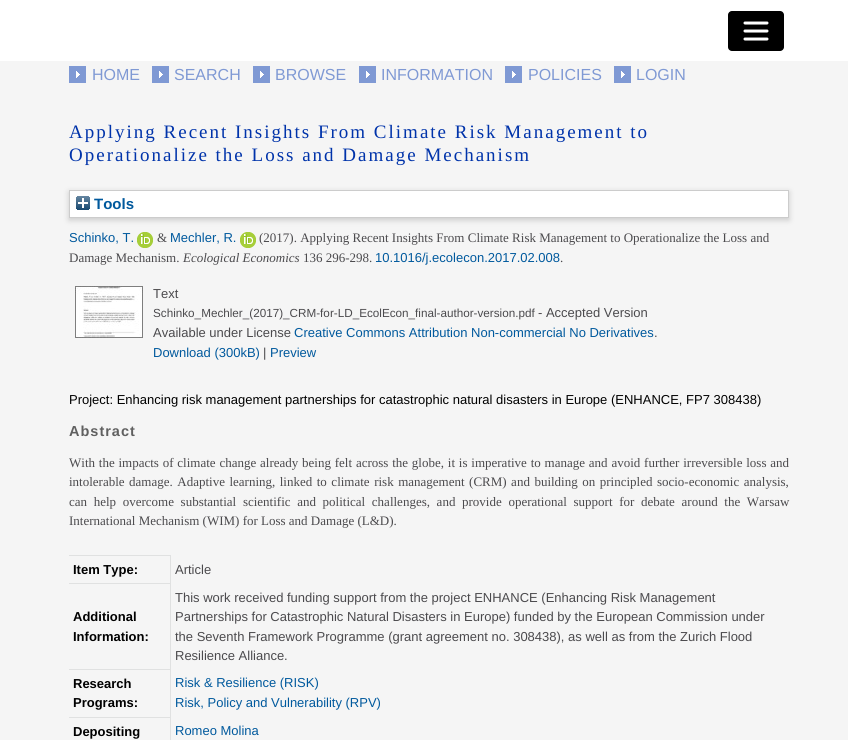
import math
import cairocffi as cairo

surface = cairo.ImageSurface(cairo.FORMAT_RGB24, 848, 740)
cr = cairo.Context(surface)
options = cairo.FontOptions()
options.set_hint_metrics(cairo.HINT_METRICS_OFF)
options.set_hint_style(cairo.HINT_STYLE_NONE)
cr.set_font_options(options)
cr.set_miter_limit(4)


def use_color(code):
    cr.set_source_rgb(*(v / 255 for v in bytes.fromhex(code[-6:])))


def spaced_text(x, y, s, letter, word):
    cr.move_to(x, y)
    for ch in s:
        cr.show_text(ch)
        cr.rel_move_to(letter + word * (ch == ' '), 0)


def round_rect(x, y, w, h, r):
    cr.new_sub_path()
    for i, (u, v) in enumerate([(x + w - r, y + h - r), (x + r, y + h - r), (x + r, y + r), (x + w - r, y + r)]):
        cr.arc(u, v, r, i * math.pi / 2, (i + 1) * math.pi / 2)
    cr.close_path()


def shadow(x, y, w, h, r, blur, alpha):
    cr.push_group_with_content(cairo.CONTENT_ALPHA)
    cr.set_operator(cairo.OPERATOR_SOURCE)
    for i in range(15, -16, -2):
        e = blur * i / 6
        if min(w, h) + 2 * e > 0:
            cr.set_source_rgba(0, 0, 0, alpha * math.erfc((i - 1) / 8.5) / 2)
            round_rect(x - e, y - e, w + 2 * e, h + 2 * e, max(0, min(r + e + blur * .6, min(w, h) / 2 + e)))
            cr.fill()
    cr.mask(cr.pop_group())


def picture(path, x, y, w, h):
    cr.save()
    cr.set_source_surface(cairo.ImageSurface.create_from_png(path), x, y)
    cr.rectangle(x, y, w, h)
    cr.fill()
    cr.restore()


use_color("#f5f5f5")
cr.paint()
use_color("#ffffff")
cr.rectangle(0, 0, 848, 61)
cr.fill()
use_color("#000000")
round_rect(728, 11, 56, 40, 4)
cr.fill()
cr.new_path()
cr.move_to(745, 23)
cr.line_to(767, 23)
cr.move_to(745, 31)
cr.line_to(767, 31)
cr.move_to(745, 39)
cr.line_to(767, 39)
use_color("#ffffff")
cr.set_line_width(3)
cr.set_line_cap(cairo.LINE_CAP_ROUND)
cr.stroke()
picture("img1.png", 69, 66, 17, 17)
cr.select_font_face("Liberation Sans")
cr.set_font_size(16)
use_color("#7f99d4")
cr.move_to(92, 80)
cr.show_text("HOME")
picture("img1.png", 152, 66, 17, 17)
cr.move_to(174, 80)
cr.show_text("SEARCH")
picture("img1.png", 253, 66, 17, 17)
cr.move_to(275, 80)
cr.show_text("BROWSE")
picture("img1.png", 359, 66, 17, 17)
cr.move_to(381, 80)
cr.show_text("INFORMATION")
picture("img1.png", 505, 66, 17, 17)
cr.move_to(528, 80)
cr.show_text("POLICIES")
picture("img1.png", 614, 66, 17, 17)
cr.move_to(636, 80)
cr.show_text("LOGIN")
cr.select_font_face("Liberation Serif")
cr.set_font_size(19)
use_color("#0033aa")
spaced_text(69, 138, "Applying Recent Insights From Climate Risk Management to", 2, 0)
spaced_text(69, 161, "Operationalize the Loss and Damage Mechanism", 2, 0)
use_color("#646464")
shadow(69, 192, 720, 28, 0, 3, 0.3)
use_color("#ffffff")
cr.rectangle(69.5, 190.5, 719, 27)
cr.fill_preserve()
use_color("#cccccc")
cr.set_line_width(1)
cr.set_line_cap(cairo.LINE_CAP_BUTT)
cr.stroke()
picture("img2.png", 76, 196, 14, 14)
cr.select_font_face("Liberation Sans", cairo.FONT_SLANT_NORMAL, cairo.FONT_WEIGHT_BOLD)
cr.set_font_size(15)
use_color("#00599d")
cr.move_to(94, 209)
cr.show_text("Tools")
cr.select_font_face("Liberation Sans")
cr.set_font_size(13)
cr.move_to(69, 242)
cr.show_text("Schinko, T.")
picture("img3.png", 137, 232, 16, 16)
cr.select_font_face("Liberation Serif")
use_color("#4b4a4d")
cr.move_to(157, 242)
cr.show_text("&")
cr.select_font_face("Liberation Sans")
use_color("#00599d")
cr.move_to(170, 242)
cr.show_text("Mechler, R.")
picture("img3.png", 240, 232, 16, 16)
cr.select_font_face("Liberation Serif")
use_color("#4b4a4d")
cr.move_to(259, 242)
cr.show_text("(2017). Applying Recent Insights From Climate Risk Management to Operationalize the Loss and")
cr.move_to(69, 262)
cr.show_text("Damage Mechanism.")
cr.select_font_face("Liberation Serif", cairo.FONT_SLANT_ITALIC)
cr.move_to(183, 262)
cr.show_text("Ecological Economics")
cr.select_font_face("Liberation Serif")
cr.move_to(303, 262)
cr.show_text("136 296-298.")
cr.select_font_face("Liberation Sans")
use_color("#00599d")
cr.move_to(375, 262)
cr.show_text("10.1016/j.ecolecon.2017.02.008")
cr.select_font_face("Liberation Serif")
use_color("#4b4a4d")
cr.move_to(560, 262)
cr.show_text(".")
picture("img4.png", 75, 286, 68, 52)
cr.select_font_face("Liberation Sans")
cr.move_to(153, 298)
cr.show_text("Text")
cr.set_font_size(11.7)
cr.move_to(153, 317)
cr.show_text("Schinko_Mechler_(2017)_CRM-for-LD_EcolEcon_final-author-version.pdf")
cr.set_font_size(13)
cr.move_to(538, 317)
cr.show_text("- Accepted Version")
cr.move_to(153, 337)
cr.show_text("Available under License")
use_color("#00599d")
cr.move_to(294, 337)
cr.show_text("Creative Commons Attribution Non-commercial No Derivatives")
use_color("#4b4a4d")
cr.move_to(654, 337)
cr.show_text(".")
use_color("#00599d")
cr.move_to(153, 357)
cr.show_text("Download (300kB)")
use_color("#4b4a4d")
cr.move_to(263, 357)
cr.show_text("|")
use_color("#00599d")
cr.move_to(270, 357)
cr.show_text("Preview")
use_color("#000000")
cr.move_to(69, 404)
cr.show_text("Project: Enhancing risk management partnerships for catastrophic natural disasters in Europe (ENHANCE, FP7 308438)")
cr.select_font_face("Liberation Sans", cairo.FONT_SLANT_NORMAL, cairo.FONT_WEIGHT_BOLD)
cr.set_font_size(14.5)
use_color("#606060")
spaced_text(69, 436, "Abstract", 1, 0)
cr.select_font_face("Liberation Serif")
cr.set_font_size(13)
use_color("#4b4a4d")
spaced_text(69, 467, "With the impacts of climate change already being felt across the globe, it is imperative to manage and avoid further irreversible loss and", 0, 0.55)
spaced_text(69, 486, "intolerable damage. Adaptive learning, linked to climate risk management (CRM) and building on principled socio-economic analysis,", 0, 1.25)
spaced_text(69, 506, "can help overcome substantial scientific and political challenges, and provide operational support for debate around the Warsaw", 0, 3.4)
cr.move_to(69, 525)
cr.show_text("International Mechanism (WIM) for Loss and Damage (L&D).")
use_color("#e0e1e1")
cr.rectangle(69, 555, 102, 1)
cr.fill()
cr.rectangle(69, 583, 102, 1)
cr.fill()
cr.rectangle(69, 669, 102, 1)
cr.fill()
cr.rectangle(69, 717, 102, 1)
cr.fill()
cr.rectangle(170, 717, 1, 23)
cr.fill()
cr.rectangle(170, 669, 1, 49)
cr.fill()
cr.rectangle(170, 583, 1, 87)
cr.fill()
cr.rectangle(170, 555, 1, 29)
cr.fill()
cr.select_font_face("Liberation Sans", cairo.FONT_SLANT_NORMAL, cairo.FONT_WEIGHT_BOLD)
use_color("#000000")
cr.move_to(73, 574)
cr.show_text("Item Type:")
cr.select_font_face("Liberation Sans")
use_color("#4b4a4d")
cr.move_to(175, 574)
cr.show_text("Article")
cr.select_font_face("Liberation Sans", cairo.FONT_SLANT_NORMAL, cairo.FONT_WEIGHT_BOLD)
use_color("#000000")
cr.move_to(73, 621)
cr.show_text("Additional")
cr.move_to(73, 641)
cr.show_text("Information:")
cr.select_font_face("Liberation Sans")
use_color("#4b4a4d")
cr.move_to(175, 602)
cr.show_text("This work received funding support from the project ENHANCE (Enhancing Risk Management")
cr.move_to(175, 621)
cr.show_text("Partnerships for Catastrophic Natural Disasters in Europe) funded by the European Commission under")
cr.move_to(175, 641)
cr.show_text("the Seventh Framework Programme (grant agreement no. 308438), as well as from the Zurich Flood")
cr.move_to(175, 660)
cr.show_text("Resilience Alliance.")
cr.select_font_face("Liberation Sans", cairo.FONT_SLANT_NORMAL, cairo.FONT_WEIGHT_BOLD)
use_color("#000000")
cr.move_to(73, 688)
cr.show_text("Research")
cr.move_to(73, 707)
cr.show_text("Programs:")
cr.select_font_face("Liberation Sans")
use_color("#00599d")
cr.move_to(175, 687)
cr.show_text("Risk & Resilience (RISK)")
cr.move_to(175, 707)
cr.show_text("Risk, Policy and Vulnerability (RPV)")
cr.select_font_face("Liberation Sans", cairo.FONT_SLANT_NORMAL, cairo.FONT_WEIGHT_BOLD)
use_color("#000000")
cr.move_to(73, 736)
cr.show_text("Depositing")
cr.select_font_face("Liberation Sans")
use_color("#00599d")
cr.move_to(175, 735)
cr.show_text("Romeo Molina")
surface.write_to_png("result.png")
